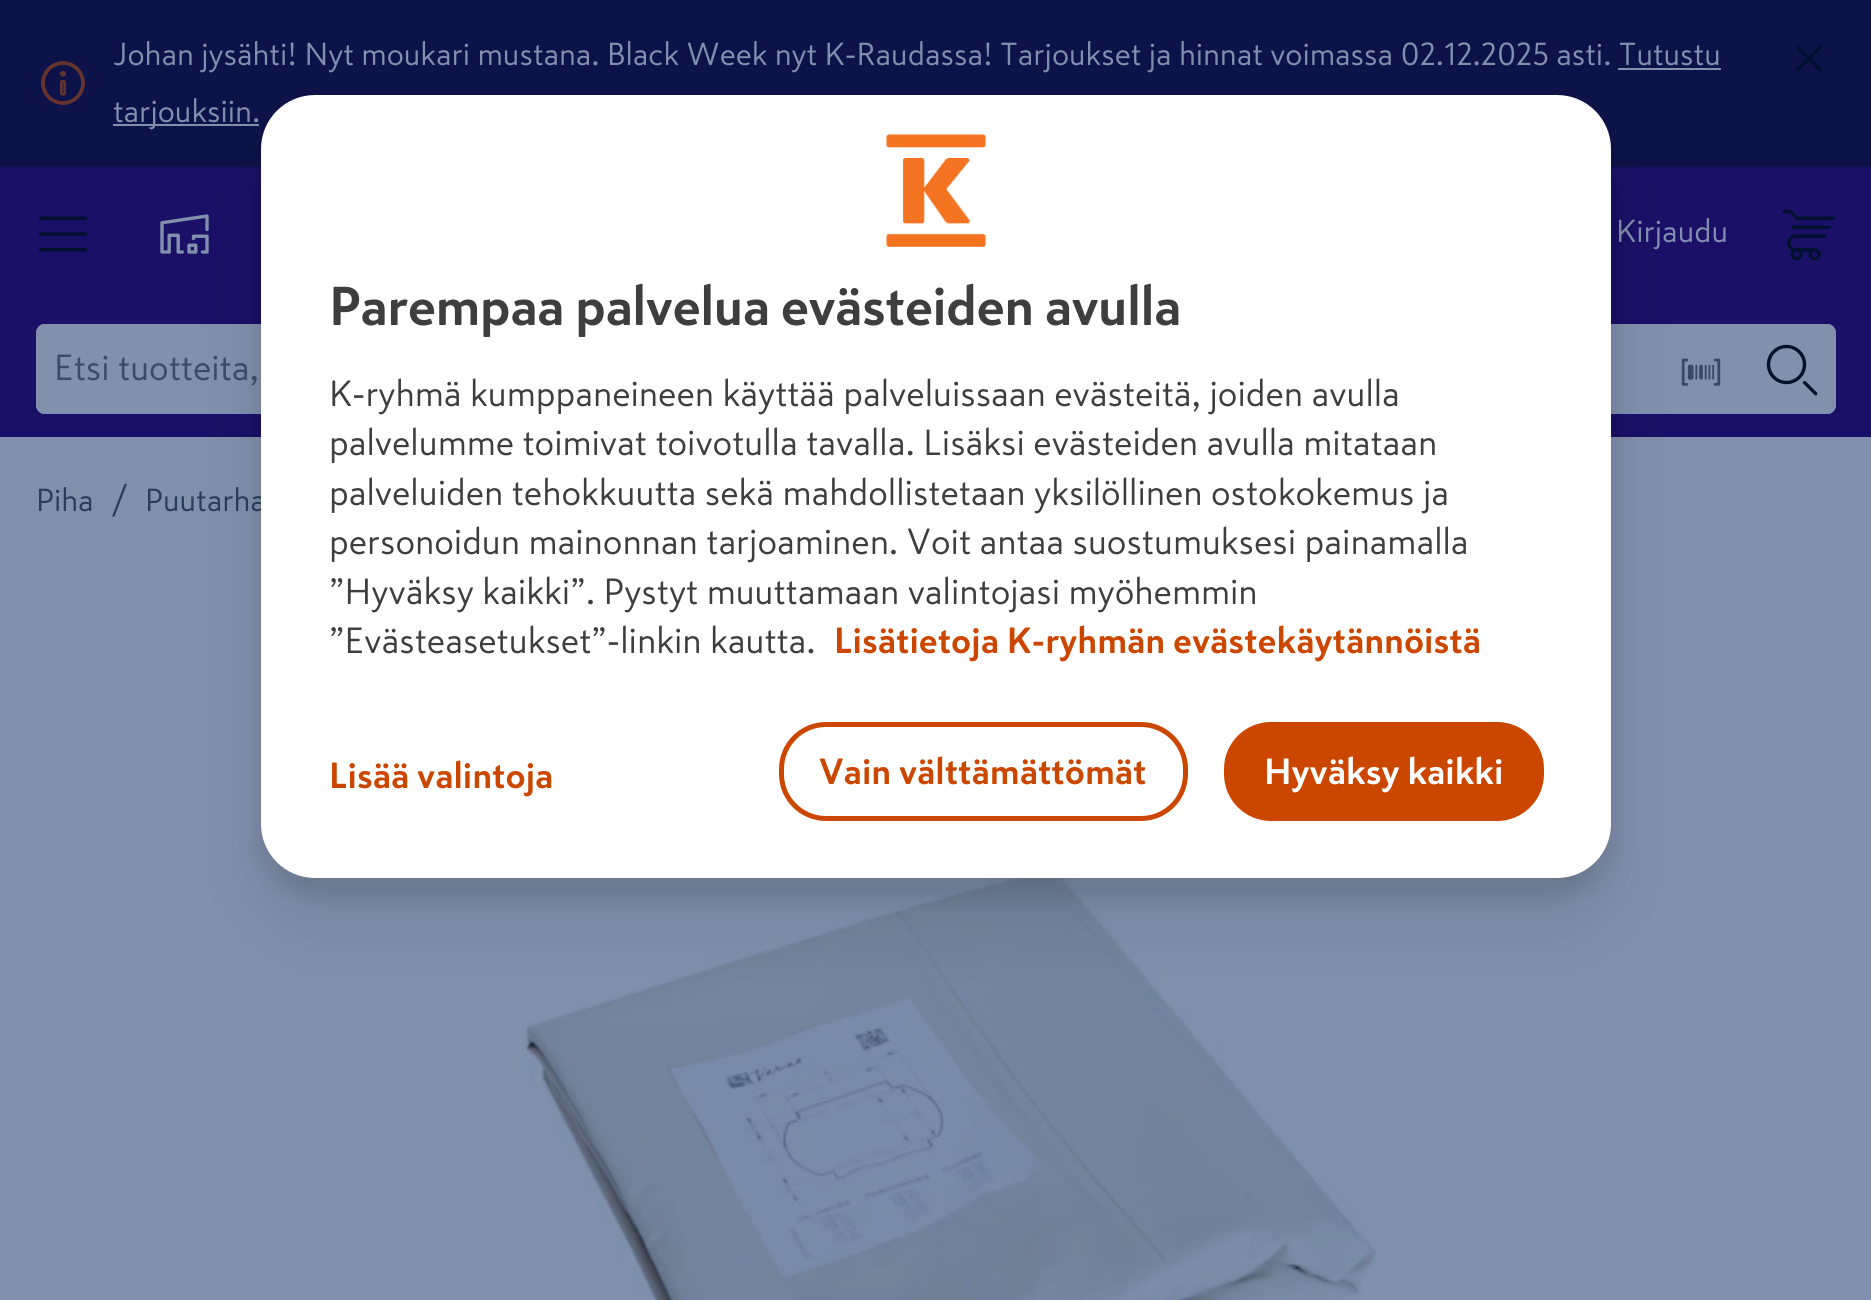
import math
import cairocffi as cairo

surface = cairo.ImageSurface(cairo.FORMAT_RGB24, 1871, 1300)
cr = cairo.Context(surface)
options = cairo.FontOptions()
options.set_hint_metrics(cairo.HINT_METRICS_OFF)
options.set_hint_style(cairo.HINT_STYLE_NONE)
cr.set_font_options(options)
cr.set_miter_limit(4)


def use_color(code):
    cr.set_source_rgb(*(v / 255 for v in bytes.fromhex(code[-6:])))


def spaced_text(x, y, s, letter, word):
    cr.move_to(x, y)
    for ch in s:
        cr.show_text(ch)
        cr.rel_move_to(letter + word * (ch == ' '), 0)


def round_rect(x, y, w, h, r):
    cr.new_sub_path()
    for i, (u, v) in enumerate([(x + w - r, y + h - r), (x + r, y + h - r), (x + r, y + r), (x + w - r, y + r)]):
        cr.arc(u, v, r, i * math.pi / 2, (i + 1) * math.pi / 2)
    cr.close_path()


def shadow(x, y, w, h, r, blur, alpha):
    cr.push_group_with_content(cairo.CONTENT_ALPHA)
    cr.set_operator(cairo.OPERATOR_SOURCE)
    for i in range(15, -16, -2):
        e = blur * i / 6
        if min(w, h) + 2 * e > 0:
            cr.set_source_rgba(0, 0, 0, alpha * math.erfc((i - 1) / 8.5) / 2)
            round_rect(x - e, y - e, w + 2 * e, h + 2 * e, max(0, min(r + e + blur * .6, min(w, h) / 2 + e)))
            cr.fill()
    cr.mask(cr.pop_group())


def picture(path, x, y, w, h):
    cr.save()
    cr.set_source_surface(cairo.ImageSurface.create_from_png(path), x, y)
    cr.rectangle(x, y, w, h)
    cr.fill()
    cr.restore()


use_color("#8090ad")
cr.paint()
use_color("#0d1249")
cr.rectangle(0, 0, 1871, 167)
cr.fill()
picture("img1.png", 41, 61, 44, 44)
cr.select_font_face("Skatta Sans")
cr.set_font_size(31.5)
use_color("#8090ad")
cr.move_to(113, 65)
cr.show_text("Johan jysähti! Nyt moukari mustana. Black Week nyt K-Raudassa! Tarjoukset ja hinnat voimassa 02.12.2025 asti. Tutustu")
cr.rectangle(1618, 68, 103, 2)
cr.fill()
cr.rectangle(113, 124, 146, 2)
cr.fill()
cr.move_to(113, 122)
cr.show_text("tarjouksiin.")
picture("img2.png", 1796, 45, 26, 27)
use_color("#1a1067")
cr.rectangle(0, 167, 1871, 270)
cr.fill()
picture("img3.png", 38, 216, 50, 36)
picture("img4.png", 160, 214, 49, 40)
use_color("#8090ad")
cr.move_to(1616, 242)
cr.show_text("Kirjaudu")
picture("img5.png", 1782, 209, 54, 52)
round_rect(36, 324, 1800, 90, 9)
cr.fill()
cr.new_path()
cr.move_to(45, 324)
cr.line_to(1665, 324)
cr.line_to(1665, 414)
cr.line_to(45, 414)
cr.curve_to(40, 414, 36, 410, 36, 405)
cr.line_to(36, 333)
cr.curve_to(36, 328, 40, 324, 45, 324)
cr.close_path()
cr.fill()
cr.set_font_size(36)
use_color("#3b4b68")
cr.move_to(54, 380)
cr.show_text("Etsi tuotteita,")
picture("img6.png", 1681, 358, 40, 28)
use_color("#8090ad")
cr.new_path()
cr.move_to(1746, 324)
cr.line_to(1827, 324)
cr.curve_to(1832, 324, 1836, 328, 1836, 333)
cr.line_to(1836, 405)
cr.curve_to(1836, 410, 1832, 414, 1827, 414)
cr.line_to(1746, 414)
cr.close_path()
cr.fill()
picture("img7.png", 1766, 344, 52, 52)
cr.set_font_size(31.5)
use_color("#2a3c5b")
cr.move_to(36, 511)
cr.show_text("Piha")
cr.set_font_size(36)
cr.move_to(112, 511)
cr.show_text("/")
cr.set_font_size(31.5)
cr.move_to(145, 511)
cr.show_text("Puutarha")
picture("img8.png", 522, 878, 854, 422)
use_color("#000000")
shadow(257, 135, 1359, 792, 59, 36, 0.08)
shadow(261, 113, 1350, 783, 54, 13.5, 0.12)
use_color("#ffffff")
round_rect(261, 95, 1350, 783, 54)
cr.fill()
picture("img9.png", 886, 134, 101, 113)
cr.select_font_face("Skatta Sans", cairo.FONT_SLANT_NORMAL, cairo.FONT_WEIGHT_BOLD)
cr.set_font_size(54)
use_color("#3e3e3e")
spaced_text(329, 325, "Parempaa palvelua evästeiden avulla", -0.55, 0)
cr.select_font_face("Skatta Sans")
cr.set_font_size(36)
cr.move_to(329, 406)
cr.show_text("K-ryhmä kumppaneineen käyttää palveluissaan evästeitä, joiden avulla")
cr.move_to(329, 455)
cr.show_text("palvelumme toimivat toivotulla tavalla. Lisäksi evästeiden avulla mitataan")
cr.move_to(329, 505)
cr.show_text("palveluiden tehokkuutta sekä mahdollistetaan yksilöllinen ostokokemus ja")
cr.move_to(329, 554)
cr.show_text("personoidun mainonnan tarjoaminen. Voit antaa suostumuksesi painamalla")
cr.move_to(329, 604)
cr.show_text("”Hyväksy kaikki”. Pystyt muuttamaan valintojasi myöhemmin")
cr.move_to(329, 653)
cr.show_text("”Evästeasetukset”-linkin kautta.")
cr.select_font_face("Skatta Sans", cairo.FONT_SLANT_NORMAL, cairo.FONT_WEIGHT_BOLD)
use_color("#cb4700")
cr.move_to(834, 653)
cr.show_text("Lisätietoja K-ryhmän evästekäytännöistä")
cr.move_to(329, 788)
cr.show_text("Lisää valintoja")
round_rect(781.5, 724.5, 404, 94, 44.5)
cr.set_line_width(5)
cr.stroke()
cr.move_to(819, 784)
cr.show_text("Vain välttämättömät")
round_rect(1226.5, 724.5, 315, 94, 44.5)
cr.fill_preserve()
cr.stroke()
use_color("#ffffff")
cr.move_to(1264, 784)
cr.show_text("Hyväksy kaikki")
surface.write_to_png("result.png")
